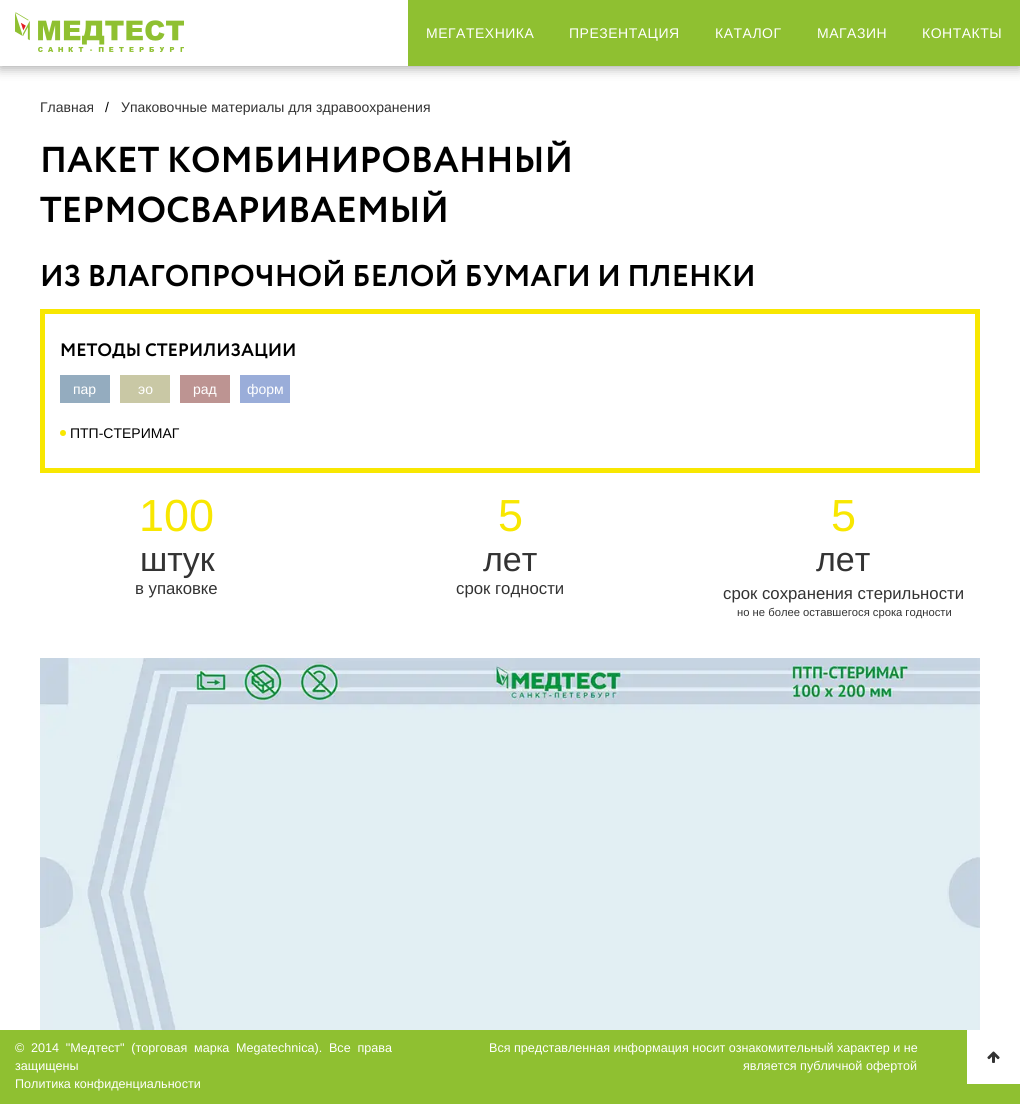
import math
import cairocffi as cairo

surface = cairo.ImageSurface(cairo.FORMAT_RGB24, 1020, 1104)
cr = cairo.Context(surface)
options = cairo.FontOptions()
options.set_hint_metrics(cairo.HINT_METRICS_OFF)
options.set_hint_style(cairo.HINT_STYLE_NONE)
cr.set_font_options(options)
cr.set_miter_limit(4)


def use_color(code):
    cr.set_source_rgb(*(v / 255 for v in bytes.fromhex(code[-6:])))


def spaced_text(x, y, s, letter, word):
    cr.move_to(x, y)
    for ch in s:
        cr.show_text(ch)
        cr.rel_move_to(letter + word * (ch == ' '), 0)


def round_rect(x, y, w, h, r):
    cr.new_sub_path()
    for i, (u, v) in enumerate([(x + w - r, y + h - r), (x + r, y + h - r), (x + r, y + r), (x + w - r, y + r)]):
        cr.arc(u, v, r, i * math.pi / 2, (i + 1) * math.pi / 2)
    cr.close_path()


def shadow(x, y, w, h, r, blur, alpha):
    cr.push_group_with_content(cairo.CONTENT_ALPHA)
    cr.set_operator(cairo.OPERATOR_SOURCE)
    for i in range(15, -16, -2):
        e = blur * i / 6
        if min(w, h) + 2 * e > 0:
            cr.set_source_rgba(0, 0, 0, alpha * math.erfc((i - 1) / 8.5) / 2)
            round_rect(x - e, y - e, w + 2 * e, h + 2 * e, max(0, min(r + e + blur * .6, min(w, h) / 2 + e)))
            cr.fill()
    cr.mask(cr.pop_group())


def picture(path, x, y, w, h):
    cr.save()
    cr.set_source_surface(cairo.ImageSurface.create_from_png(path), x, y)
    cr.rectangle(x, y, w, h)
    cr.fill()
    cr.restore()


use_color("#ffffff")
cr.paint()
use_color("#000000")
shadow(0, 2, 1020, 66, 0, 6, 0.35)
use_color("#ffffff")
cr.rectangle(0, 0, 408, 66)
cr.fill()
picture("img1.png", 15, 12, 169, 40)
use_color("#8fc031")
cr.rectangle(408, 0, 612, 66)
cr.fill()
cr.select_font_face("Liberation Sans")
cr.set_font_size(14)
use_color("#ffffff")
spaced_text(426, 38, "МЕГАТЕХНИКА", 0.5, 0)
spaced_text(569, 38, "ПРЕЗЕНТАЦИЯ", 0.5, 0)
spaced_text(715, 38, "КАТАЛОГ", 0.5, 0)
spaced_text(817, 38, "МАГАЗИН", 0.5, 0)
spaced_text(922, 38, "КОНТАКТЫ", 0.5, 0)
use_color("#333333")
cr.move_to(40, 112)
cr.show_text("Главная")
use_color("#000000")
cr.move_to(105, 112)
cr.show_text("/")
use_color("#333333")
cr.move_to(121, 112)
cr.show_text("Упаковочные материалы для здравоохранения")
picture("img2.png", 43, 140, 527, 33)
picture("img3.png", 40, 190, 406, 33)
picture("img4.png", 42, 259, 711, 28)
cr.rectangle(42.5, 311.5, 935, 159)
use_color("#f8e701")
cr.set_line_width(5)
cr.stroke()
picture("img5.png", 61, 343, 234, 16)
use_color("#94acbf")
cr.rectangle(60, 375, 50, 28)
cr.fill()
use_color("#ffffff")
cr.move_to(73, 394)
cr.show_text("пар")
use_color("#c9c8a5")
cr.rectangle(120, 375, 50, 28)
cr.fill()
use_color("#ffffff")
cr.move_to(138, 394)
cr.show_text("эо")
use_color("#bd9492")
cr.rectangle(180, 375, 50, 28)
cr.fill()
use_color("#ffffff")
cr.move_to(193, 394)
cr.show_text("рад")
use_color("#9aadd9")
cr.rectangle(240, 375, 50, 28)
cr.fill()
use_color("#ffffff")
cr.move_to(247, 394)
cr.show_text("форм")
use_color("#f8e701")
cr.new_path()
cr.arc(63, 433, 3, 0, 2 * math.pi)
cr.fill()
use_color("#000000")
cr.move_to(70, 438)
cr.show_text("ПТП-СТЕРИМАГ")
cr.set_font_size(45)
use_color("#f8e701")
cr.move_to(139, 531)
cr.show_text("100")
cr.set_font_size(34)
use_color("#333333")
cr.move_to(140, 571)
cr.show_text("штук")
cr.set_font_size(16.75)
cr.move_to(135, 594)
cr.show_text("в упаковке")
cr.set_font_size(45)
use_color("#f8e701")
cr.move_to(498, 531)
cr.show_text("5")
cr.set_font_size(34)
use_color("#333333")
cr.move_to(483, 571)
cr.show_text("лет")
cr.set_font_size(16.75)
cr.move_to(456, 594)
cr.show_text("срок годности")
cr.set_font_size(45)
use_color("#f8e701")
cr.move_to(831, 531)
cr.show_text("5")
cr.set_font_size(34)
use_color("#333333")
cr.move_to(816, 571)
cr.show_text("лет")
cr.set_font_size(16.75)
cr.move_to(723, 599)
cr.show_text("срок сохранения стерильности")
cr.set_font_size(11.25)
cr.move_to(737, 616)
cr.show_text("но не более оставшегося срока годности")
picture("img6.png", 40, 658, 940, 372)
use_color("#8fc031")
cr.rectangle(0, 1030, 1020, 74)
cr.fill()
cr.set_font_size(12.6)
use_color("#ffffff")
spaced_text(15, 1052, "© 2014 \"Медтест\" (торговая марка Megatechnica). Все права", 0, 3.25)
cr.move_to(15, 1070)
cr.show_text("защищены")
cr.move_to(15, 1088)
cr.show_text("Политика конфиденциальности")
cr.move_to(489, 1052)
cr.show_text("Вся представленная информация носит ознакомительный характер и не")
cr.move_to(743, 1070)
cr.show_text("является публичной офертой")
cr.rectangle(967, 1030, 53, 54)
cr.fill()
picture("img7.png", 987, 1051, 13, 12)
surface.write_to_png("result.png")
